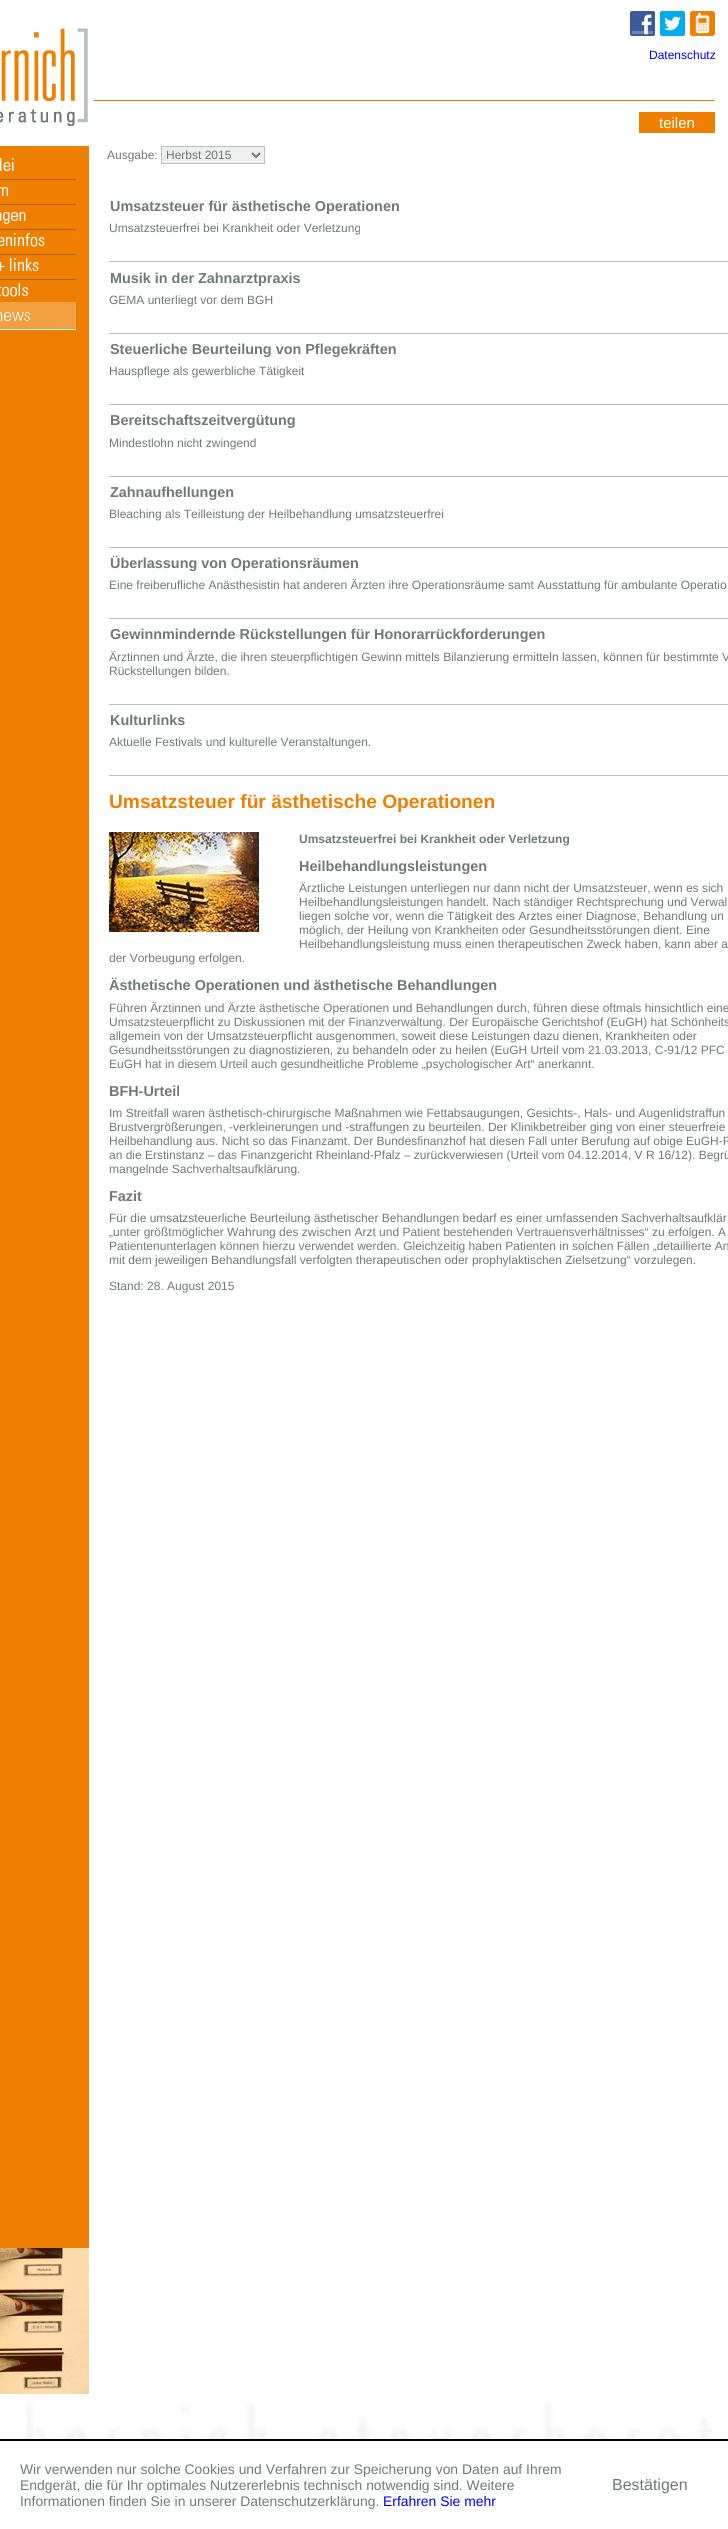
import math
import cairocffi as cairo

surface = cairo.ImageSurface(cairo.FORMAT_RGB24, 728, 2529)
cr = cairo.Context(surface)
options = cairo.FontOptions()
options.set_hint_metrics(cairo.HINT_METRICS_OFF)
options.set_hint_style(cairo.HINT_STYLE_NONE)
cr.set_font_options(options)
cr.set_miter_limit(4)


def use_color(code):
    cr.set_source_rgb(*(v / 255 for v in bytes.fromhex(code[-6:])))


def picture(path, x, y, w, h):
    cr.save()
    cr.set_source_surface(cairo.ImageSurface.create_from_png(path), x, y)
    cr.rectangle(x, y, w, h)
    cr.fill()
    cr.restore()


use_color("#ffffff")
cr.paint()
picture("img1.png", 630, 11, 25, 25)
picture("img2.png", 660, 11, 25, 25)
picture("img3.png", 690, 11, 25, 25)
cr.select_font_face("Liberation Sans")
cr.set_font_size(12)
use_color("#0000ee")
cr.move_to(649, 59)
cr.show_text("Datenschutz")
picture("img4.png", 26, 2402, 686, 37)
use_color("#ee7f01")
cr.rectangle(93, 100, 622, 1)
cr.fill()
cr.rectangle(639, 112, 76, 21)
cr.fill()
cr.set_font_size(15)
use_color("#ffffff")
cr.move_to(659, 128)
cr.show_text("teilen")
picture("img5.png", 0, 28, 93, 98)
use_color("#ee7f01")
cr.rectangle(0, 146, 89, 2102)
cr.fill()
picture("img6.png", 0, 2248, 89, 146)
cr.set_font_size(12)
use_color("#717878")
cr.move_to(107, 159)
cr.show_text("Ausgabe:")
use_color("#efefef")
cr.rectangle(161.5, 146.5, 103, 17)
cr.fill_preserve()
use_color("#b9bebf")
cr.set_line_width(1)
cr.stroke()
cr.new_path()
cr.move_to(252, 153)
cr.line_to(256, 157)
cr.line_to(260, 153)
use_color("#717878")
cr.set_line_width(2)
cr.stroke()
cr.move_to(166, 159)
cr.show_text("Herbst 2015")
use_color("#ab5d00")
cr.rectangle(0, 179, 76, 1)
cr.fill()
picture("img7.png", 0, 158, 14, 13)
cr.rectangle(0, 204, 76, 1)
cr.fill()
picture("img8.png", 0, 187, 8, 9)
cr.rectangle(0, 229, 76, 1)
cr.fill()
picture("img9.png", 0, 212, 26, 12)
cr.rectangle(0, 254, 76, 1)
cr.fill()
picture("img10.png", 0, 233, 45, 14)
cr.rectangle(0, 279, 76, 1)
cr.fill()
picture("img11.png", 0, 258, 39, 13)
picture("img12.png", 0, 283, 28, 14)
use_color("#f29f41")
cr.rectangle(0, 302, 76, 27)
cr.fill()
use_color("#ffffff")
cr.rectangle(0, 329, 76, 1)
cr.fill()
picture("img13.png", 0, 312, 30, 9)
use_color("#b9bebf")
cr.rectangle(109, 261, 619, 1)
cr.fill()
cr.select_font_face("Liberation Sans", cairo.FONT_SLANT_NORMAL, cairo.FONT_WEIGHT_BOLD)
cr.set_font_size(14.4)
use_color("#717878")
cr.move_to(110, 211)
cr.show_text("Umsatzsteuer für ästhetische Operationen")
cr.select_font_face("Liberation Sans")
cr.set_font_size(12)
cr.move_to(109, 232)
cr.show_text("Umsatzsteuerfrei bei Krankheit oder Verletzung")
use_color("#b9bebf")
cr.rectangle(109, 333, 619, 1)
cr.fill()
cr.select_font_face("Liberation Sans", cairo.FONT_SLANT_NORMAL, cairo.FONT_WEIGHT_BOLD)
cr.set_font_size(14.4)
use_color("#717878")
cr.move_to(110, 283)
cr.show_text("Musik in der Zahnarztpraxis")
cr.select_font_face("Liberation Sans")
cr.set_font_size(12)
cr.move_to(109, 304)
cr.show_text("GEMA unterliegt vor dem BGH")
use_color("#b9bebf")
cr.rectangle(109, 404, 619, 1)
cr.fill()
cr.select_font_face("Liberation Sans", cairo.FONT_SLANT_NORMAL, cairo.FONT_WEIGHT_BOLD)
cr.set_font_size(14.4)
use_color("#717878")
cr.move_to(110, 354)
cr.show_text("Steuerliche Beurteilung von Pflegekräften")
cr.select_font_face("Liberation Sans")
cr.set_font_size(12)
cr.move_to(109, 375)
cr.show_text("Hauspflege als gewerbliche Tätigkeit")
use_color("#b9bebf")
cr.rectangle(109, 476, 619, 1)
cr.fill()
cr.select_font_face("Liberation Sans", cairo.FONT_SLANT_NORMAL, cairo.FONT_WEIGHT_BOLD)
cr.set_font_size(14.4)
use_color("#717878")
cr.move_to(110, 425)
cr.show_text("Bereitschaftszeitvergütung")
cr.select_font_face("Liberation Sans")
cr.set_font_size(12)
cr.move_to(109, 447)
cr.show_text("Mindestlohn nicht zwingend")
use_color("#b9bebf")
cr.rectangle(109, 547, 619, 1)
cr.fill()
cr.select_font_face("Liberation Sans", cairo.FONT_SLANT_NORMAL, cairo.FONT_WEIGHT_BOLD)
cr.set_font_size(14.4)
use_color("#717878")
cr.move_to(110, 497)
cr.show_text("Zahnaufhellungen")
cr.select_font_face("Liberation Sans")
cr.set_font_size(12)
cr.move_to(109, 518)
cr.show_text("Bleaching als Teilleistung der Heilbehandlung umsatzsteuerfrei")
use_color("#b9bebf")
cr.rectangle(109, 618, 619, 1)
cr.fill()
cr.select_font_face("Liberation Sans", cairo.FONT_SLANT_NORMAL, cairo.FONT_WEIGHT_BOLD)
cr.set_font_size(14.4)
use_color("#717878")
cr.move_to(110, 568)
cr.show_text("Überlassung von Operationsräumen")
cr.select_font_face("Liberation Sans")
cr.set_font_size(12)
cr.move_to(109, 589)
cr.show_text("Eine freiberufliche Anästhesistin hat anderen Ärzten ihre Operationsräume samt Ausstattung für ambulante Operatio")
use_color("#b9bebf")
cr.rectangle(109, 704, 619, 1)
cr.fill()
cr.select_font_face("Liberation Sans", cairo.FONT_SLANT_NORMAL, cairo.FONT_WEIGHT_BOLD)
cr.set_font_size(14.4)
use_color("#717878")
cr.move_to(110, 639)
cr.show_text("Gewinnmindernde Rückstellungen für Honorarrückforderungen")
cr.select_font_face("Liberation Sans")
cr.set_font_size(12)
cr.move_to(109, 661)
cr.show_text("Ärztinnen und Ärzte, die ihren steuerpflichtigen Gewinn mittels Bilanzierung ermitteln lassen, können für bestimmte V")
cr.move_to(109, 675)
cr.show_text("Rückstellungen bilden.")
use_color("#b9bebf")
cr.rectangle(109, 775, 619, 1)
cr.fill()
cr.select_font_face("Liberation Sans", cairo.FONT_SLANT_NORMAL, cairo.FONT_WEIGHT_BOLD)
cr.set_font_size(14.4)
use_color("#717878")
cr.move_to(110, 725)
cr.show_text("Kulturlinks")
cr.select_font_face("Liberation Sans")
cr.set_font_size(12)
cr.move_to(109, 746)
cr.show_text("Aktuelle Festivals und kulturelle Veranstaltungen.")
cr.select_font_face("Liberation Sans", cairo.FONT_SLANT_NORMAL, cairo.FONT_WEIGHT_BOLD)
cr.set_font_size(19.2)
use_color("#ee7f01")
cr.move_to(109, 808)
cr.show_text("Umsatzsteuer für ästhetische Operationen")
picture("img14.png", 109, 832, 150, 100)
cr.set_font_size(12)
use_color("#717878")
cr.move_to(299, 843)
cr.show_text("Umsatzsteuerfrei bei Krankheit oder Verletzung")
cr.set_font_size(14.4)
cr.move_to(299, 871)
cr.show_text("Heilbehandlungsleistungen")
cr.select_font_face("Liberation Sans")
cr.set_font_size(12)
cr.move_to(299, 892)
cr.show_text("Ärztliche Leistungen unterliegen nur dann nicht der Umsatzsteuer, wenn es sich")
cr.move_to(299, 906)
cr.show_text("Heilbehandlungsleistungen handelt. Nach ständiger Rechtsprechung und Verwal")
cr.move_to(299, 920)
cr.show_text("liegen solche vor, wenn die Tätigkeit des Arztes einer Diagnose, Behandlung un")
cr.move_to(299, 934)
cr.show_text("möglich, der Heilung von Krankheiten oder Gesundheitsstörungen dient. Eine")
cr.move_to(299, 948)
cr.show_text("Heilbehandlungsleistung muss einen therapeutischen Zweck haben, kann aber a")
cr.move_to(109, 962)
cr.show_text("der Vorbeugung erfolgen.")
cr.select_font_face("Liberation Sans", cairo.FONT_SLANT_NORMAL, cairo.FONT_WEIGHT_BOLD)
cr.set_font_size(14.4)
cr.move_to(109, 990)
cr.show_text("Ästhetische Operationen und ästhetische Behandlungen")
cr.select_font_face("Liberation Sans")
cr.set_font_size(12)
cr.move_to(109, 1012)
cr.show_text("Führen Ärztinnen und Ärzte ästhetische Operationen und Behandlungen durch, führen diese oftmals hinsichtlich eine")
cr.move_to(109, 1026)
cr.show_text("Umsatzsteuerpflicht zu Diskussionen mit der Finanzverwaltung. Der Europäische Gerichtshof (EuGH) hat Schönheits")
cr.move_to(109, 1040)
cr.show_text("allgemein von der Umsatzsteuerpflicht ausgenommen, soweit diese Leistungen dazu dienen, Krankheiten oder")
cr.move_to(109, 1054)
cr.show_text("Gesundheitsstörungen zu diagnostizieren, zu behandeln oder zu heilen (EuGH Urteil vom 21.03.2013, C-91/12 PFC")
cr.move_to(109, 1068)
cr.show_text("EuGH hat in diesem Urteil auch gesundheitliche Probleme „psychologischer Art“ anerkannt.")
cr.select_font_face("Liberation Sans", cairo.FONT_SLANT_NORMAL, cairo.FONT_WEIGHT_BOLD)
cr.set_font_size(14.4)
cr.move_to(109, 1096)
cr.show_text("BFH-Urteil")
cr.select_font_face("Liberation Sans")
cr.set_font_size(12)
cr.move_to(109, 1117)
cr.show_text("Im Streitfall waren ästhetisch-chirurgische Maßnahmen wie Fettabsaugungen, Gesichts-, Hals- und Augenlidstraffun")
cr.move_to(109, 1131)
cr.show_text("Brustvergrößerungen, -verkleinerungen und -straffungen zu beurteilen. Der Klinikbetreiber ging von einer steuerfreie")
cr.move_to(109, 1145)
cr.show_text("Heilbehandlung aus. Nicht so das Finanzamt. Der Bundesfinanzhof hat diesen Fall unter Berufung auf obige EuGH-R")
cr.move_to(109, 1159)
cr.show_text("an die Erstinstanz – das Finanzgericht Rheinland-Pfalz – zurückverwiesen (Urteil vom 04.12.2014, V R 16/12). Begrü")
cr.move_to(109, 1173)
cr.show_text("mangelnde Sachverhaltsaufklärung.")
cr.select_font_face("Liberation Sans", cairo.FONT_SLANT_NORMAL, cairo.FONT_WEIGHT_BOLD)
cr.set_font_size(14.4)
cr.move_to(109, 1201)
cr.show_text("Fazit")
cr.select_font_face("Liberation Sans")
cr.set_font_size(12)
cr.move_to(109, 1222)
cr.show_text("Für die umsatzsteuerliche Beurteilung ästhetischer Behandlungen bedarf es einer umfassenden Sachverhaltsaufklär")
cr.move_to(109, 1236)
cr.show_text("„unter größtmöglicher Wahrung des zwischen Arzt und Patient bestehenden Vertrauensverhältnisses“ zu erfolgen. A")
cr.move_to(109, 1250)
cr.show_text("Patientenunterlagen können hierzu verwendet werden. Gleichzeitig haben Patienten in solchen Fällen „detaillierte An")
cr.move_to(109, 1264)
cr.show_text("mit dem jeweiligen Behandlungsfall verfolgten therapeutischen oder prophylaktischen Zielsetzung“ vorzulegen.")
cr.move_to(109, 1290)
cr.show_text("Stand: 28. August 2015")
use_color("#000000")
cr.rectangle(0, 2439, 728, 2)
cr.fill()
cr.set_font_size(13.9)
use_color("#717878")
cr.move_to(20, 2474)
cr.show_text("Wir verwenden nur solche Cookies und Verfahren zur Speicherung von Daten auf Ihrem")
cr.move_to(20, 2490)
cr.show_text("Endgerät, die für Ihr optimales Nutzererlebnis technisch notwendig sind. Weitere")
cr.move_to(20, 2506)
cr.show_text("Informationen finden Sie in unserer Datenschutzerklärung.")
use_color("#0000ee")
cr.move_to(383, 2506)
cr.show_text("Erfahren Sie mehr")
cr.set_font_size(16)
use_color("#717878")
cr.move_to(612, 2490)
cr.show_text("Bestätigen")
surface.write_to_png("result.png")
